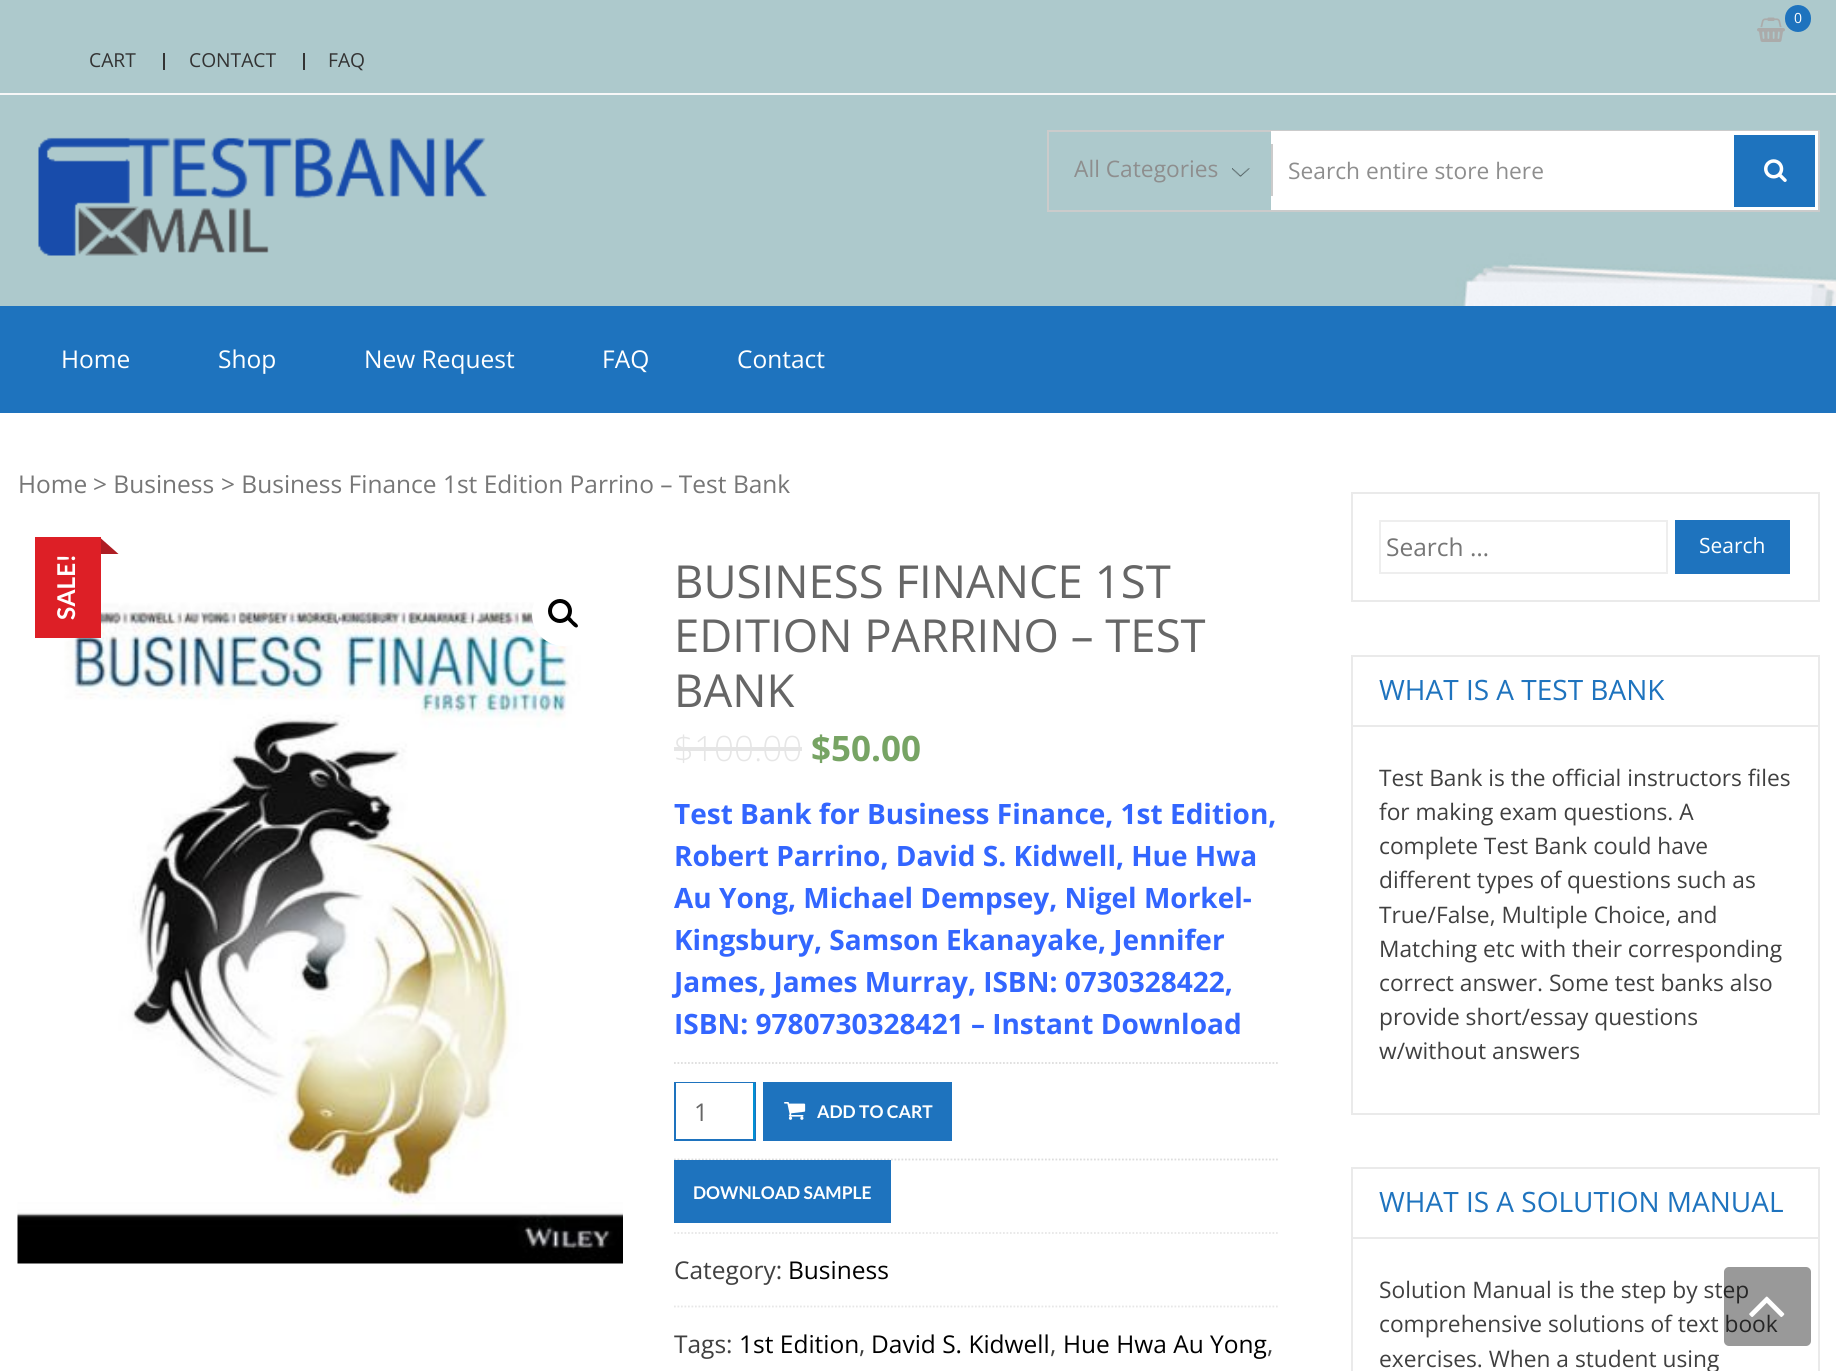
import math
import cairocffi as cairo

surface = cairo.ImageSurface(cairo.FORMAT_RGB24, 1836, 1371)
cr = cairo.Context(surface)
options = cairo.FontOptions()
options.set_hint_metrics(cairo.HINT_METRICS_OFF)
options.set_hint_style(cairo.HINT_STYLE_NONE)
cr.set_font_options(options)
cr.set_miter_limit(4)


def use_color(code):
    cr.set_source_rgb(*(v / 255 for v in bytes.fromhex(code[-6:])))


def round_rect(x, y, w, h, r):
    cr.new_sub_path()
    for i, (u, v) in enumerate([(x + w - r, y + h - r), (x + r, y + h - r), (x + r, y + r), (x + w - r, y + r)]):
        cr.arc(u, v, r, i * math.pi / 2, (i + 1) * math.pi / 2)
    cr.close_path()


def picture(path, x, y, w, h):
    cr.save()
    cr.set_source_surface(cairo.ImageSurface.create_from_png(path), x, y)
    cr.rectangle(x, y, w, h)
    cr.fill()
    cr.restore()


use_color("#ffffff")
cr.paint()
picture("img1.png", 0, 0, 1836, 306)
use_color("#f7f7f7")
cr.rectangle(0, 93, 1836, 2)
cr.fill()
picture("img2.png", 1757, 17, 28, 25)
use_color("#1e73be")
round_rect(1785, 5, 26, 27, 13)
cr.fill()
cr.select_font_face("Open Sans")
cr.set_font_size(14)
use_color("#ffffff")
cr.move_to(1794, 23)
cr.show_text("0")
cr.set_font_size(19.25)
use_color("#333333")
cr.move_to(89, 67)
cr.show_text("CART")
cr.rectangle(163, 53, 2, 17)
cr.fill()
cr.move_to(189, 67)
cr.show_text("CONTACT")
cr.rectangle(303, 53, 2, 17)
cr.fill()
cr.move_to(328, 67)
cr.show_text("FAQ")
picture("img3.png", 38, 137, 449, 119)
cr.rectangle(1048, 131, 771, 80)
use_color("#cbcbcb")
cr.stroke()
picture("img4.png", 1232, 168, 18, 9)
cr.set_font_size(22.75)
use_color("#8e8e8e")
cr.move_to(1074, 177)
cr.show_text("All Categories")
use_color("#ffffff")
cr.rectangle(1271, 131, 547, 79)
cr.fill()
use_color("#cbcbcb")
cr.rectangle(1271, 144, 2, 52)
cr.fill()
use_color("#8e8e8e")
cr.move_to(1288, 179)
cr.show_text("Search entire store here")
use_color("#1e73be")
cr.rectangle(1734, 135, 81, 72)
cr.fill()
picture("img5.png", 1764, 159, 23, 23)
cr.rectangle(0, 306, 1836, 107)
cr.fill()
cr.set_font_size(24.5)
use_color("#ffffff")
cr.move_to(61, 368)
cr.show_text("Home")
cr.move_to(218, 368)
cr.show_text("Shop")
cr.move_to(364, 368)
cr.show_text("New Request")
cr.move_to(602, 368)
cr.show_text("FAQ")
cr.move_to(737, 368)
cr.show_text("Contact")
use_color("#767676")
cr.move_to(18, 493)
cr.show_text("Home")
cr.move_to(93, 493)
cr.show_text("> Business")
cr.move_to(221, 493)
cr.show_text("> Business Finance 1st Edition Parrino – Test Bank")
picture("img7.png", 17, 602, 606, 662)
use_color("#dd1f26")
cr.rectangle(35, 537, 66, 101)
cr.fill()
use_color("#ae1e24")
cr.new_path()
cr.move_to(101, 554)
cr.line_to(101, 538.5)
cr.line_to(118.5, 554)
cr.close_path()
cr.fill()
cr.select_font_face("Lato", cairo.FONT_SLANT_NORMAL, cairo.FONT_WEIGHT_BOLD)
use_color("#ffffff")
cr.save()
cr.translate(75, 620)
cr.rotate(-90 * math.pi / 180)
cr.move_to(0, 0)
cr.show_text("SALE!")
cr.restore()
cr.select_font_face("Open Sans")
cr.set_font_size(45.5)
use_color("#666666")
cr.move_to(674, 598)
cr.show_text("BUSINESS FINANCE 1ST")
cr.move_to(674, 652)
cr.show_text("EDITION PARRINO – TEST")
cr.move_to(674, 707)
cr.show_text("BANK")
cr.select_font_face("Open Sans Light")
cr.set_font_size(35)
use_color("#e6e6e6")
cr.move_to(674, 761)
cr.show_text("$100.00")
cr.rectangle(674, 747, 128, 4)
cr.fill()
cr.select_font_face("Open Sans", cairo.FONT_SLANT_NORMAL, cairo.FONT_WEIGHT_BOLD)
use_color("#77a464")
cr.move_to(811, 761)
cr.show_text("$50.00")
cr.set_font_size(28)
use_color("#3366ff")
cr.move_to(674, 824)
cr.show_text("Test Bank for Business Finance, 1st Edition,")
cr.move_to(674, 866)
cr.show_text("Robert Parrino, David S. Kidwell, Hue Hwa")
cr.move_to(674, 908)
cr.show_text("Au Yong, Michael Dempsey, Nigel Morkel-")
cr.move_to(674, 950)
cr.show_text("Kingsbury, Samson Ekanayake, Jennifer")
cr.move_to(674, 992)
cr.show_text("James, James Murray, ISBN: 0730328422,")
cr.move_to(674, 1034)
cr.show_text("ISBN: 9780730328421 – Instant Download")
cr.new_path()
cr.move_to(674, 1063)
cr.line_to(1279, 1063)
use_color("#dddddd")
cr.set_line_width(1.8)
cr.set_dash([1.75, 1.75])
cr.stroke()
cr.new_path()
cr.move_to(674, 1159.5)
cr.line_to(1279, 1159.5)
cr.stroke()
cr.rectangle(675, 1083, 80, 57)
use_color("#1e73be")
cr.set_line_width(2)
cr.set_dash([])
cr.stroke()
use_color("#ffffff")
cr.rectangle(676, 1083, 77, 1)
cr.fill()
use_color("#0091d5")
cr.rectangle(753, 1083, 2, 56)
cr.fill()
cr.select_font_face("Open Sans")
cr.set_font_size(24.5)
use_color("#666666")
cr.move_to(694, 1121)
cr.show_text("1")
use_color("#1e73be")
cr.rectangle(763, 1082, 189, 59)
cr.fill()
picture("img6.png", 784, 1102, 22, 18)
cr.select_font_face("Lato", cairo.FONT_SLANT_NORMAL, cairo.FONT_WEIGHT_BOLD)
cr.set_font_size(17.5)
use_color("#ffffff")
cr.move_to(817, 1118)
cr.show_text("ADD TO CART")
use_color("#1e73be")
cr.rectangle(674, 1160, 217, 63)
cr.fill()
use_color("#ffffff")
cr.move_to(693, 1199)
cr.show_text("DOWNLOAD SAMPLE")
cr.new_path()
cr.move_to(674, 1233)
cr.line_to(1279, 1233)
use_color("#e7e7e7")
cr.set_line_width(1.8)
cr.set_dash([1.75, 1.75])
cr.stroke()
cr.new_path()
cr.move_to(674, 1306.5)
cr.line_to(1279, 1306.5)
cr.stroke()
cr.select_font_face("Open Sans")
cr.set_font_size(24.5)
use_color("#404040")
cr.move_to(674, 1279)
cr.show_text("Category:")
use_color("#000000")
cr.move_to(788, 1279)
cr.show_text("Business")
use_color("#404040")
cr.move_to(674, 1353)
cr.show_text("Tags:")
use_color("#000000")
cr.move_to(739, 1353)
cr.show_text("1st Edition")
use_color("#404040")
cr.move_to(859, 1353)
cr.show_text(",")
use_color("#000000")
cr.move_to(871, 1353)
cr.show_text("David S. Kidwell")
use_color("#404040")
cr.move_to(1050, 1353)
cr.show_text(",")
use_color("#000000")
cr.move_to(1063, 1353)
cr.show_text("Hue Hwa Au Yong")
use_color("#404040")
cr.move_to(1267, 1353)
cr.show_text(",")
use_color("#ffffff")
cr.new_path()
cr.arc(563.5, 614.5, 31.5, 0, 2 * math.pi)
cr.fill()
cr.arc(560, 611, 10, 0, 2 * math.pi)
use_color("#000000")
cr.set_line_width(4)
cr.set_dash([])
cr.stroke()
cr.new_path()
cr.move_to(567.5, 617)
cr.curve_to(569.5, 615, 572.5, 620, 573.5, 621)
cr.curve_to(574.5, 622, 579.5, 625, 577.5, 627)
cr.curve_to(575.5, 629, 572, 624.5, 571, 623.5)
cr.curve_to(570, 622.5, 565.5, 619, 567.5, 617)
cr.close_path()
cr.fill()
cr.rectangle(1352, 493, 467, 108)
use_color("#eaeaea")
cr.set_line_width(2)
cr.stroke()
cr.rectangle(1380, 521, 287, 52)
use_color("#eeeeee")
cr.stroke()
use_color("#767676")
cr.move_to(1386, 556)
cr.show_text("Search …")
use_color("#1e73be")
cr.rectangle(1675, 520, 115, 54)
cr.fill()
cr.set_font_size(21)
use_color("#ffffff")
cr.move_to(1699, 553)
cr.show_text("Search")
cr.rectangle(1352, 656, 467, 458)
use_color("#eaeaea")
cr.stroke()
cr.rectangle(1353, 725, 465, 2)
cr.fill()
cr.set_font_size(28)
use_color("#1e73be")
cr.move_to(1379, 700)
cr.show_text("WHAT IS A TEST BANK")
cr.set_font_size(22.75)
use_color("#404040")
cr.move_to(1379, 786)
cr.show_text("Test Bank is the official instructors files")
cr.move_to(1379, 820)
cr.show_text("for making exam questions. A")
cr.move_to(1379, 854)
cr.show_text("complete Test Bank could have")
cr.move_to(1379, 888)
cr.show_text("different types of questions such as")
cr.move_to(1379, 923)
cr.show_text("True/False, Multiple Choice, and")
cr.move_to(1379, 957)
cr.show_text("Matching etc with their corresponding")
cr.move_to(1379, 991)
cr.show_text("correct answer. Some test banks also")
cr.move_to(1379, 1025)
cr.show_text("provide short/essay questions")
cr.move_to(1379, 1059)
cr.show_text("w/without answers")
cr.rectangle(1352, 1168, 467, 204)
use_color("#eaeaea")
cr.stroke()
cr.rectangle(1353, 1237, 465, 2)
cr.fill()
cr.set_font_size(28)
use_color("#1e73be")
cr.move_to(1379, 1212)
cr.show_text("WHAT IS A SOLUTION MANUAL")
cr.set_font_size(22.75)
use_color("#404040")
cr.move_to(1379, 1298)
cr.show_text("Solution Manual is the step by step")
cr.move_to(1379, 1332)
cr.show_text("comprehensive solutions of text book")
cr.move_to(1379, 1367)
cr.show_text("exercises. When a student using")
cr.set_source_rgba(0, 0, 0, 0.4)
round_rect(1724, 1267, 87, 79, 5)
cr.fill()
picture("img8.png", 1749, 1296, 36, 21)
surface.write_to_png("result.png")
